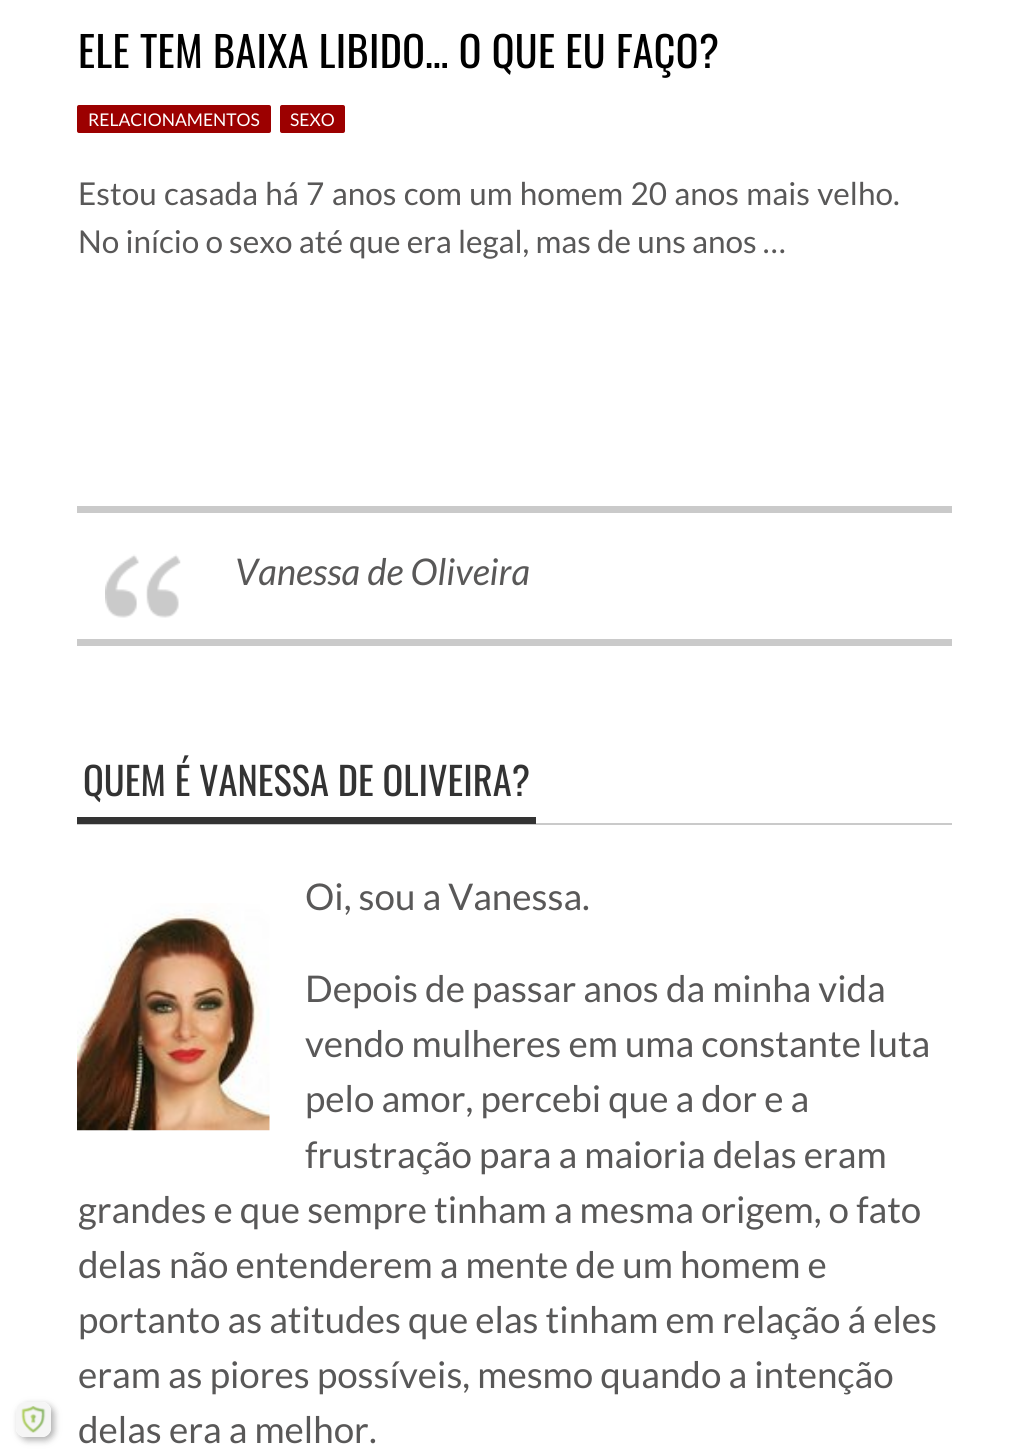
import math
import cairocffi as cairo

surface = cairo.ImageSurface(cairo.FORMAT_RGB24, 1028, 1451)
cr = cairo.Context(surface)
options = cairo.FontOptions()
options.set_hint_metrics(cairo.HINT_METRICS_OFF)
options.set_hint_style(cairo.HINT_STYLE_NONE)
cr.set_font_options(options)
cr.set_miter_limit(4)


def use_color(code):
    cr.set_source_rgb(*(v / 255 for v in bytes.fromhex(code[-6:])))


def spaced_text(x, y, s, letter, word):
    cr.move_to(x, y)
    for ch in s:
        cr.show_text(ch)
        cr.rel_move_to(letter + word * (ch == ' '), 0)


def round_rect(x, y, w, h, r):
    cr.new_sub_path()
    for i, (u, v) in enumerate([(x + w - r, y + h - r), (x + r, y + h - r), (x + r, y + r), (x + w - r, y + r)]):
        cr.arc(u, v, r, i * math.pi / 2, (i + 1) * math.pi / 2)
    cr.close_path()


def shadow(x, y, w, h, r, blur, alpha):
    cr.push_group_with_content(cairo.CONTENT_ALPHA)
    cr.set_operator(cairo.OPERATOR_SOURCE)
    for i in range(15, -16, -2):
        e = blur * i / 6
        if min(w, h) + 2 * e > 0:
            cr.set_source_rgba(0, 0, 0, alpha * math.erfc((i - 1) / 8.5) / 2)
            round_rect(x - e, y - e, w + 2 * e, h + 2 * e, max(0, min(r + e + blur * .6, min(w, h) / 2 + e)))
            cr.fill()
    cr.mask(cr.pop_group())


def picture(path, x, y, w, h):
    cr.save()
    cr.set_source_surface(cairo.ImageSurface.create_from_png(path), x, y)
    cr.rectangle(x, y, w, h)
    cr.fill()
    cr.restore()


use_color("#ffffff")
cr.paint()
cr.save()
cr.set_fill_rule(cairo.FILL_RULE_EVEN_ODD)
cr.new_path()
cr.move_to(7, 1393)
cr.line_to(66, 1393)
cr.line_to(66, 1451)
cr.line_to(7, 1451)
cr.close_path()
cr.move_to(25, 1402)
cr.line_to(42, 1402)
cr.curve_to(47, 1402, 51, 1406, 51, 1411)
cr.line_to(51, 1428)
cr.curve_to(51, 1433, 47, 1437, 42, 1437)
cr.line_to(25, 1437)
cr.curve_to(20, 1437, 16, 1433, 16, 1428)
cr.line_to(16, 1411)
cr.curve_to(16, 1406, 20, 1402, 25, 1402)
cr.close_path()
cr.clip()
use_color("#4d4d4d")
shadow(19, 1405, 35, 35, 9, 3.5, 0.47)
cr.restore()
cr.set_source_rgba(0.961, 0.961, 0.961, 0.99)
round_rect(16, 1402, 35, 35, 9)
cr.fill()
picture("img1.png", 21, 1406, 25, 27)
cr.select_font_face("Oswald")
cr.set_font_size(42)
use_color("#000000")
spaced_text(78, 68, "ELE TEM BAIXA LIBIDO… O QUE EU FAÇO?", 0.35, 0)
use_color("#9c0000")
round_rect(77, 105, 194, 28, 2)
cr.fill()
cr.select_font_face("Lato")
cr.set_font_size(17.5)
use_color("#ffffff")
cr.move_to(88, 126)
cr.show_text("RELACIONAMENTOS")
use_color("#9c0000")
round_rect(280, 105, 65, 28, 2)
cr.fill()
use_color("#ffffff")
cr.move_to(290, 126)
cr.show_text("SEXO")
cr.set_font_size(31.5)
use_color("#595858")
spaced_text(78, 205, "Estou casada há 7 anos com um homem 20 anos mais velho.", 0, 1.25)
cr.move_to(78, 253)
cr.show_text("No início o sexo até que era legal, mas de uns anos …")
picture("img2.png", 105, 554, 76, 64)
use_color("#cacaca")
cr.rectangle(77, 506, 875, 7)
cr.fill()
cr.rectangle(77, 639, 875, 7)
cr.fill()
cr.select_font_face("Lato", cairo.FONT_SLANT_ITALIC)
cr.set_font_size(36.75)
use_color("#595858")
cr.move_to(235, 585)
cr.show_text("Vanessa de Oliveira")
use_color("#cacaca")
cr.rectangle(77, 823, 875, 2)
cr.fill()
use_color("#333333")
cr.rectangle(77, 817, 459, 7)
cr.fill()
cr.select_font_face("Oswald")
cr.set_font_size(38.5)
cr.move_to(83, 796)
cr.show_text("QUEM É VANESSA DE OLIVEIRA?")
cr.select_font_face("Lato")
cr.set_font_size(36.75)
use_color("#595858")
cr.move_to(305, 910)
cr.show_text("Oi, sou a Vanessa.")
picture("img3.png", 77, 903, 193, 228)
cr.move_to(305, 1002)
cr.show_text("Depois de passar anos da minha vida")
cr.move_to(305, 1057)
cr.show_text("vendo mulheres em uma constante luta")
cr.move_to(305, 1112)
cr.show_text("pelo amor, percebi que a dor e a")
cr.move_to(305, 1168)
cr.show_text("frustração para a maioria delas eram")
cr.move_to(78, 1223)
cr.show_text("grandes e que sempre tinham a mesma origem, o fato")
cr.move_to(78, 1278)
cr.show_text("delas não entenderem a mente de um homem e")
cr.move_to(78, 1333)
cr.show_text("portanto as atitudes que elas tinham em relação á eles")
cr.move_to(78, 1388)
cr.show_text("eram as piores possíveis, mesmo quando a intenção")
cr.move_to(78, 1443)
cr.show_text("delas era a melhor.")
surface.write_to_png("result.png")
